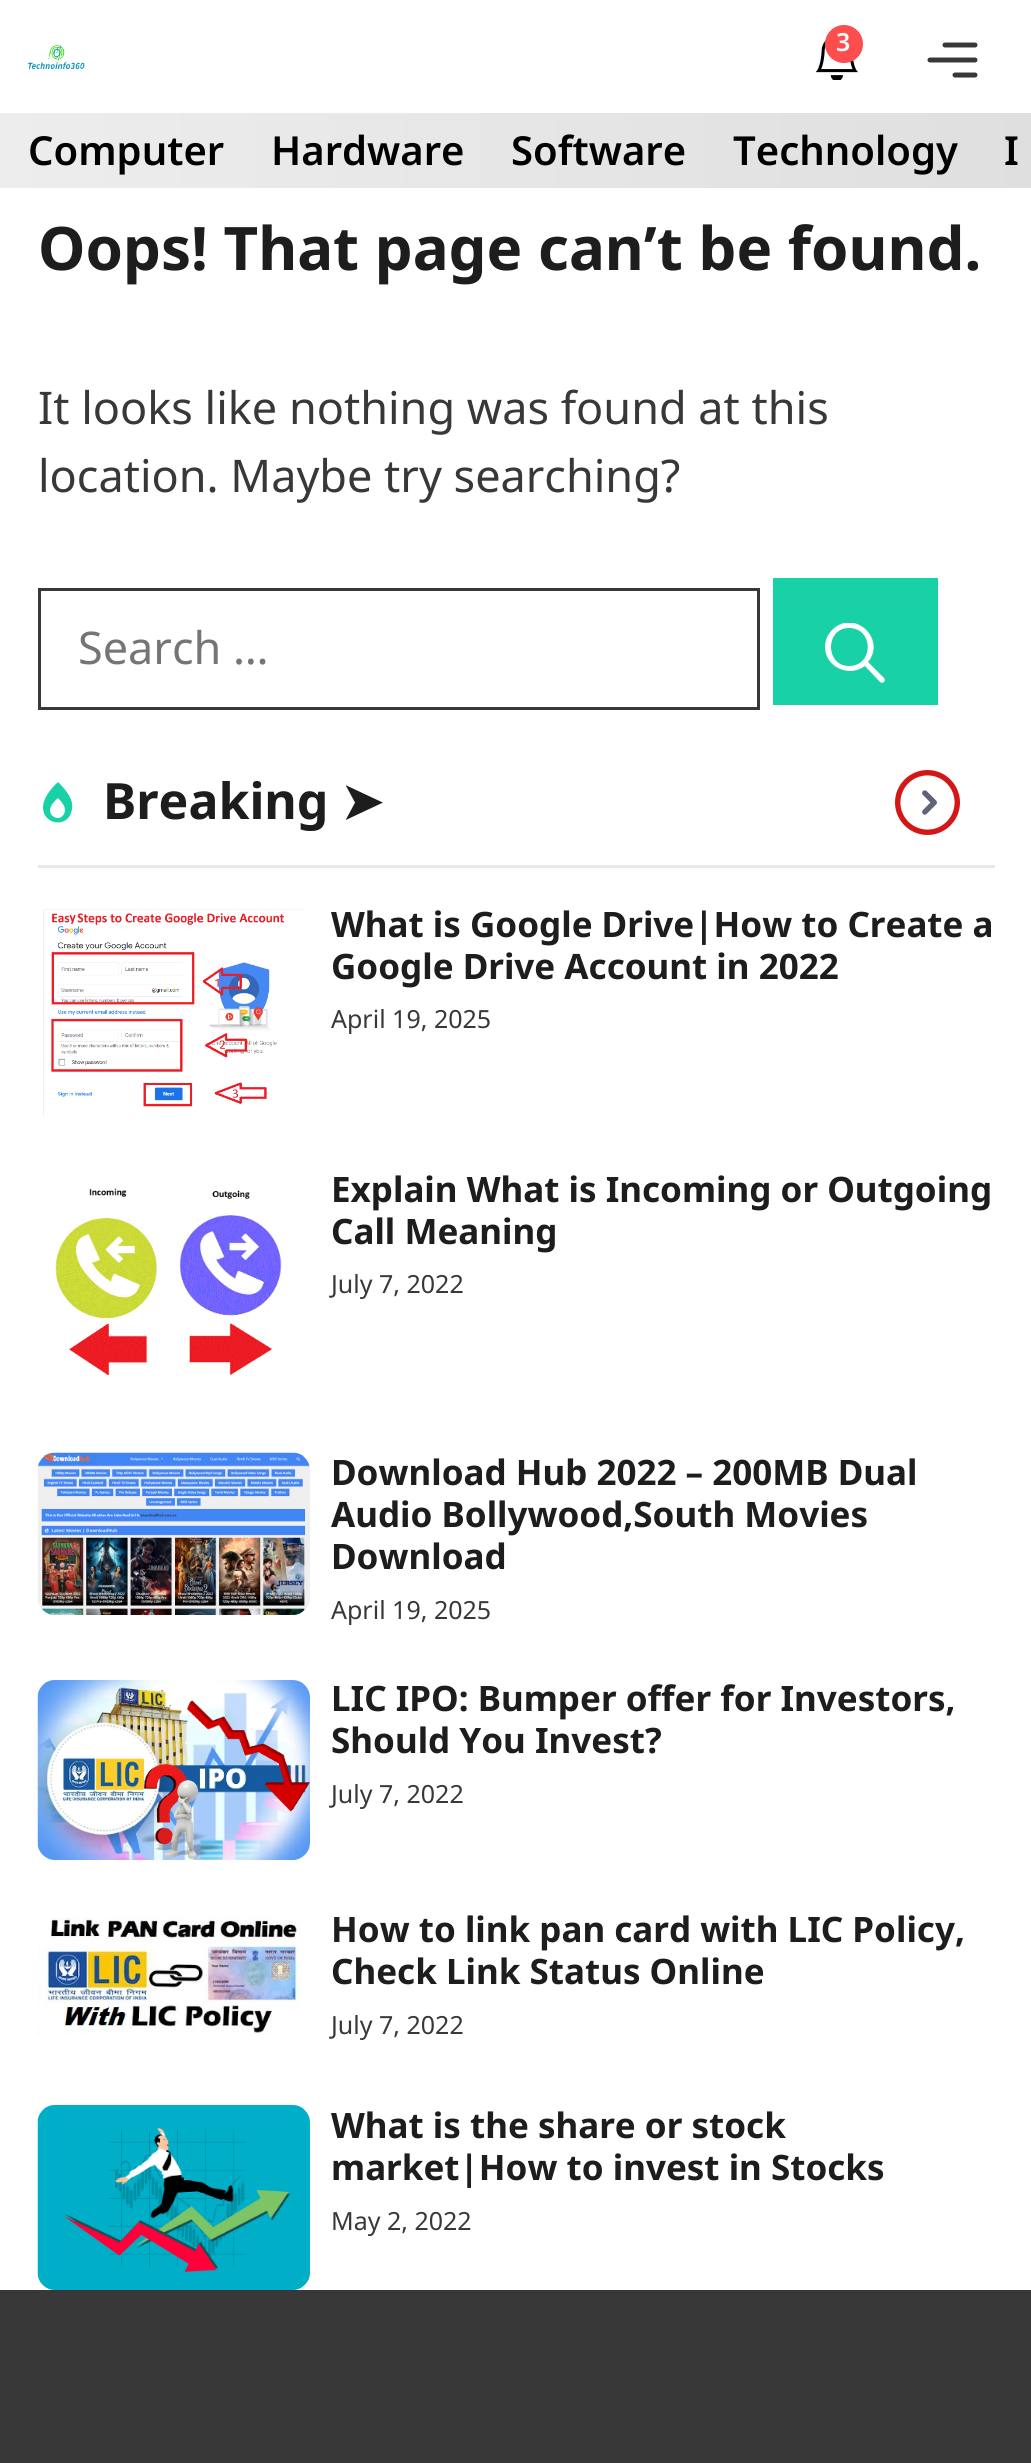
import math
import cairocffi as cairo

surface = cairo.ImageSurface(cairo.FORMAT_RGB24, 1031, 2463)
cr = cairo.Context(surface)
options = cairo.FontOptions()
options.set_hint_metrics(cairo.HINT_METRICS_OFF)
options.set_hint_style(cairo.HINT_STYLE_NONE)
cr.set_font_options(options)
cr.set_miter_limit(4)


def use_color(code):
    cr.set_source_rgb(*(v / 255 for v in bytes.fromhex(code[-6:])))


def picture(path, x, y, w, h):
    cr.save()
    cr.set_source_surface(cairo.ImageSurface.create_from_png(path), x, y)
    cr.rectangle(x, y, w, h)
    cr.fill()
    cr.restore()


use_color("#ffffff")
cr.paint()
picture("img1.png", 28, 45, 57, 25)
picture("img2.png", 815, 40, 43, 40)
use_color("#ff4c4c")
cr.arc(844, 44, 19, 0, 2 * math.pi)
cr.fill()
cr.select_font_face("Noto Sans SemiBold")
cr.set_font_size(25)
use_color("#ffffff")
cr.move_to(836, 51)
cr.show_text("3")
picture("img3.png", 927, 42, 51, 36)
gradient = cairo.LinearGradient(0, 150, 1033, 150)
gradient.add_color_stop_rgba(0, 0.929, 0.929, 0.929, 1)
gradient.add_color_stop_rgba(1, 0.875, 0.875, 0.875, 1)
cr.set_source(gradient)
cr.rectangle(0, 113, 1031, 75)
cr.fill()
cr.set_font_size(40)
use_color("#000000")
cr.move_to(28, 165)
cr.show_text("Computer")
cr.move_to(271, 165)
cr.show_text("Hardware")
cr.move_to(511, 165)
cr.show_text("Software")
cr.move_to(733, 165)
cr.show_text("Technology")
cr.move_to(1004, 165)
cr.show_text("I")
cr.select_font_face("Noto Sans", cairo.FONT_SLANT_NORMAL, cairo.FONT_WEIGHT_BOLD)
cr.set_font_size(60)
use_color("#1d1d1d")
cr.move_to(38, 270)
cr.show_text("Oops! That page can’t be found.")
cr.select_font_face("Noto Sans")
cr.set_font_size(45)
use_color("#383838")
cr.move_to(38, 424)
cr.show_text("It looks like nothing was found at this")
cr.move_to(38, 492)
cr.show_text("location. Maybe try searching?")
cr.rectangle(39.5, 589.5, 719, 119)
cr.set_line_width(3)
cr.stroke()
use_color("#757575")
cr.move_to(78, 664)
cr.show_text("Search …")
use_color("#19d1a6")
cr.rectangle(773, 578, 165, 127)
cr.fill()
cr.save()
cr.rectangle(825, 623, 60, 60)
cr.clip()
use_color("#ffffff")
cr.set_fill_rule(cairo.FILL_RULE_EVEN_ODD)
cr.new_path()
cr.move_to(849, 628)
cr.curve_to(825, 628, 825, 666, 849, 666)
cr.curve_to(874, 666, 874, 628, 849, 628)
cr.close_path()
cr.move_to(825, 647)
cr.curve_to(825, 640, 828, 634, 832, 630)
cr.curve_to(854, 608, 887, 639, 868, 662)
cr.line_to(884, 678)
cr.curve_to(885, 679, 885, 681, 884, 682)
cr.curve_to(883, 683, 881, 683, 880, 682)
cr.line_to(865, 666)
cr.curve_to(849, 678, 825, 667, 825, 647)
cr.close_path()
cr.fill()
cr.restore()
use_color("#e9e9e9")
cr.rectangle(38, 865, 957, 3)
cr.fill()
use_color("#19d1a6")
cr.new_path()
cr.move_to(58, 782)
cr.curve_to(19, 818, 68, 837, 72, 809)
cr.curve_to(74, 799, 65, 789, 58, 782)
cr.close_path()
cr.move_to(58, 818)
cr.curve_to(53, 818, 50, 814, 50, 810)
cr.curve_to(50, 809, 50, 805, 58, 798)
cr.curve_to(65, 805, 65, 809, 65, 810)
cr.curve_to(65, 814, 62, 818, 58, 818)
cr.close_path()
cr.fill()
cr.select_font_face("Noto Sans", cairo.FONT_SLANT_NORMAL, cairo.FONT_WEIGHT_BOLD)
cr.set_font_size(50)
use_color("#1d1d1d")
cr.move_to(103, 819)
cr.show_text("Breaking")
cr.select_font_face("DejaVu Sans", cairo.FONT_SLANT_NORMAL, cairo.FONT_WEIGHT_BOLD)
cr.move_to(341, 819)
cr.show_text("➤")
picture("img4.png", 895, 770, 65, 65)
picture("img5.png", 43, 909, 261, 207)
cr.select_font_face("Noto Sans", cairo.FONT_SLANT_NORMAL, cairo.FONT_WEIGHT_BOLD)
cr.set_font_size(35)
cr.move_to(331, 937)
cr.show_text("What is Google Drive|How to Create a")
cr.move_to(331, 979)
cr.show_text("Google Drive Account in 2022")
cr.select_font_face("Noto Sans")
cr.set_font_size(25)
use_color("#383838")
cr.move_to(331, 1028)
cr.show_text("April 19, 2025")
picture("img6.png", 55, 1188, 228, 188)
cr.select_font_face("Noto Sans", cairo.FONT_SLANT_NORMAL, cairo.FONT_WEIGHT_BOLD)
cr.set_font_size(35)
use_color("#1d1d1d")
cr.move_to(331, 1202)
cr.show_text("Explain What is Incoming or Outgoing")
cr.move_to(331, 1244)
cr.show_text("Call Meaning")
cr.select_font_face("Noto Sans")
cr.set_font_size(25)
use_color("#383838")
cr.move_to(331, 1293)
cr.show_text("July 7, 2022")
picture("img7.png", 37, 1452, 273, 163)
cr.select_font_face("Noto Sans", cairo.FONT_SLANT_NORMAL, cairo.FONT_WEIGHT_BOLD)
cr.set_font_size(35)
use_color("#1d1d1d")
cr.move_to(331, 1485)
cr.show_text("Download Hub 2022 – 200MB Dual")
cr.move_to(331, 1527)
cr.show_text("Audio Bollywood,South Movies")
cr.move_to(331, 1569)
cr.show_text("Download")
cr.select_font_face("Noto Sans")
cr.set_font_size(25)
use_color("#383838")
cr.move_to(331, 1619)
cr.show_text("April 19, 2025")
picture("img8.png", 37, 1680, 273, 180)
cr.select_font_face("Noto Sans", cairo.FONT_SLANT_NORMAL, cairo.FONT_WEIGHT_BOLD)
cr.set_font_size(35)
use_color("#1d1d1d")
cr.move_to(331, 1711)
cr.show_text("LIC IPO: Bumper offer for Investors,")
cr.move_to(331, 1753)
cr.show_text("Should You Invest?")
cr.select_font_face("Noto Sans")
cr.set_font_size(25)
use_color("#383838")
cr.move_to(331, 1803)
cr.show_text("July 7, 2022")
picture("img9.png", 38, 1917, 265, 118)
cr.select_font_face("Noto Sans", cairo.FONT_SLANT_NORMAL, cairo.FONT_WEIGHT_BOLD)
cr.set_font_size(35)
use_color("#1d1d1d")
cr.move_to(331, 1942)
cr.show_text("How to link pan card with LIC Policy,")
cr.move_to(331, 1984)
cr.show_text("Check Link Status Online")
cr.select_font_face("Noto Sans")
cr.set_font_size(25)
use_color("#383838")
cr.move_to(331, 2034)
cr.show_text("July 7, 2022")
picture("img10.png", 37, 2105, 273, 185)
cr.select_font_face("Noto Sans", cairo.FONT_SLANT_NORMAL, cairo.FONT_WEIGHT_BOLD)
cr.set_font_size(35)
use_color("#1d1d1d")
cr.move_to(331, 2138)
cr.show_text("What is the share or stock")
cr.move_to(331, 2180)
cr.show_text("market|How to invest in Stocks")
cr.select_font_face("Noto Sans")
cr.set_font_size(25)
use_color("#383838")
cr.move_to(331, 2230)
cr.show_text("May 2, 2022")
cr.rectangle(0, 2290, 1031, 173)
cr.fill()
surface.write_to_png("result.png")
